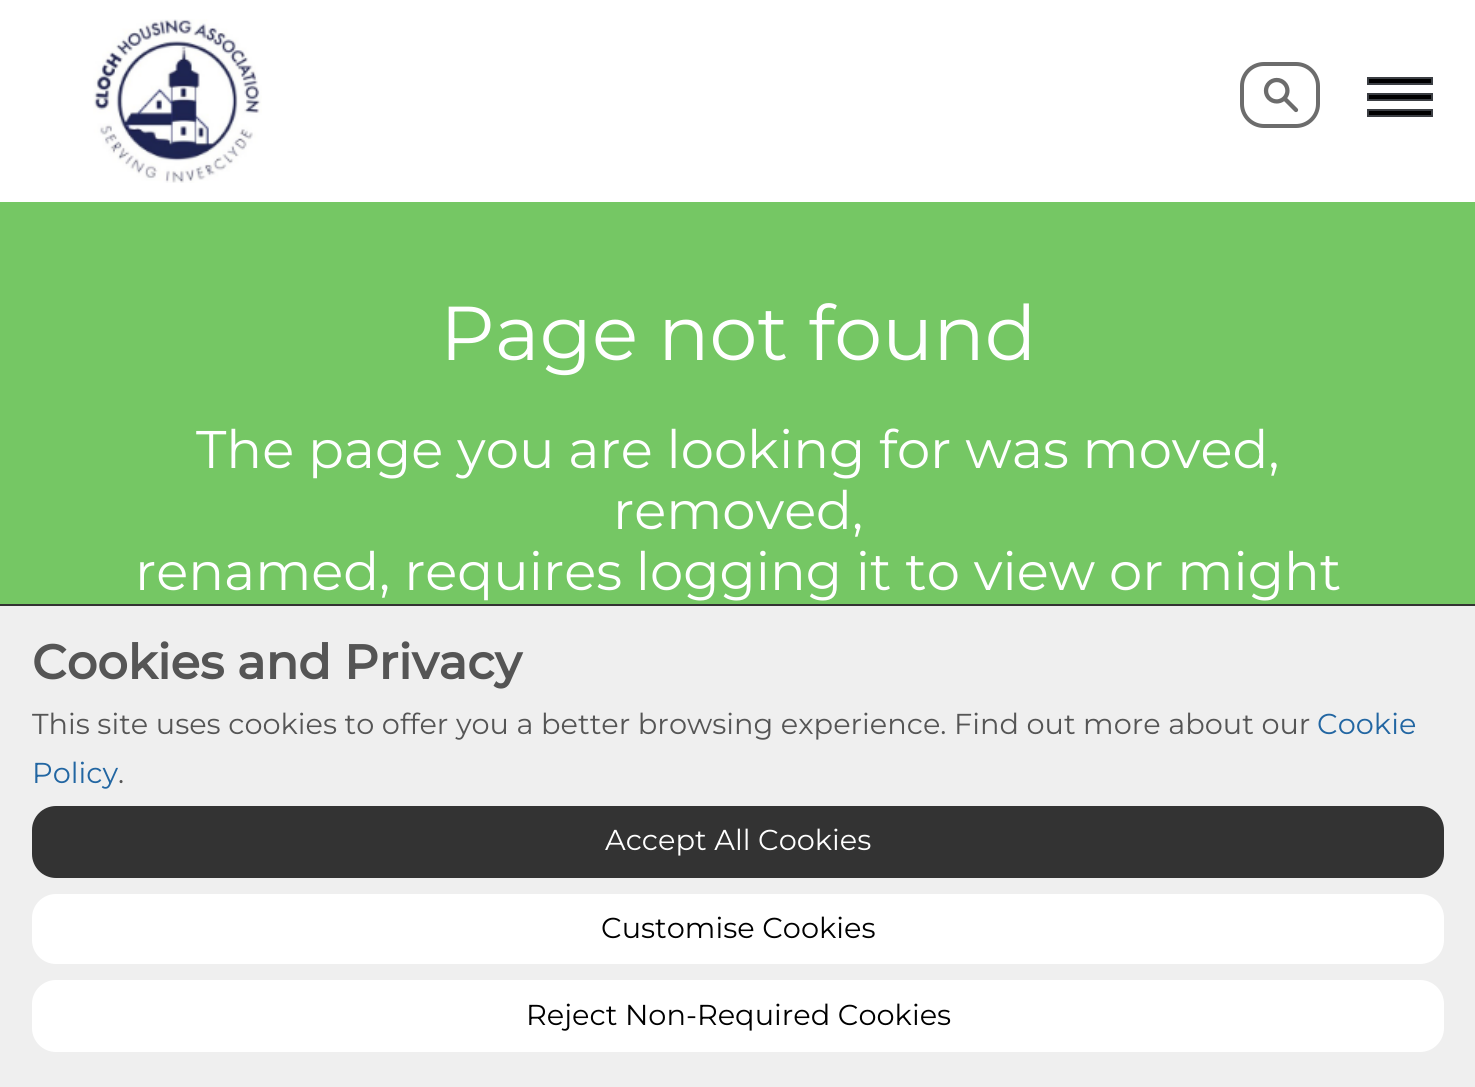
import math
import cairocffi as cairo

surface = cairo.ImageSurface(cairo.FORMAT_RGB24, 1475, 1087)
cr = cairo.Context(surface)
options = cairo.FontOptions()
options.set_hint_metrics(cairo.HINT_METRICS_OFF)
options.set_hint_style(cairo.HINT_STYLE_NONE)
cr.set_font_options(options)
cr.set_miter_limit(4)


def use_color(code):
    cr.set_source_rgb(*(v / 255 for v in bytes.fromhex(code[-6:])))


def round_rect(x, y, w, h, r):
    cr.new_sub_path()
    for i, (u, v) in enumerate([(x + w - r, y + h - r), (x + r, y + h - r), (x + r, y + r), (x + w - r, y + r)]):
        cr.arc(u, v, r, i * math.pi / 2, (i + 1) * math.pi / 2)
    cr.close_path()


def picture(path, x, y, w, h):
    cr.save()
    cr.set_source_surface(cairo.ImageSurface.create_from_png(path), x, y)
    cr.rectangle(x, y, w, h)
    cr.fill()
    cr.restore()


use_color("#ffffff")
cr.paint()
picture("img1.png", 93, 19, 169, 164)
picture("img2.png", 1263, 77, 36, 36)
round_rect(1242, 64, 76, 62, 22)
use_color("#6c6c6c")
cr.set_line_width(4)
cr.stroke()
use_color("#000000")
cr.rectangle(1368, 78, 64, 6)
cr.fill_preserve()
use_color("#3b3e43")
cr.set_line_width(2)
cr.stroke()
use_color("#000000")
cr.rectangle(1368, 94, 64, 6)
cr.fill_preserve()
use_color("#3b3e43")
cr.stroke()
use_color("#000000")
cr.rectangle(1368, 110, 64, 6)
cr.fill_preserve()
use_color("#3b3e43")
cr.stroke()
use_color("#75c764")
cr.rectangle(0, 202, 1475, 402)
cr.fill()
cr.select_font_face("Montserrat Thin")
cr.set_font_size(76.25)
use_color("#ffffff")
cr.move_to(440, 360)
cr.show_text("Page not found")
cr.set_font_size(52.9)
cr.move_to(196, 468)
cr.show_text("The page you are looking for was moved,")
cr.move_to(613, 529)
cr.show_text("removed,")
cr.move_to(135, 590)
cr.show_text("renamed, requires logging it to view or might")
use_color("#efefef")
cr.rectangle(0, 606, 1475, 481)
cr.fill()
use_color("#333333")
cr.rectangle(0, 604, 1475, 2)
cr.fill()
cr.select_font_face("Montserrat", cairo.FONT_SLANT_NORMAL, cairo.FONT_WEIGHT_BOLD)
cr.set_font_size(48)
use_color("#555555")
cr.move_to(32, 679)
cr.show_text("Cookies and Privacy")
cr.select_font_face("Montserrat Thin")
cr.set_font_size(28.8)
cr.move_to(32, 734)
cr.show_text("This site uses cookies to offer you a better browsing experience. Find out more about our")
use_color("#2266a2")
cr.move_to(1317, 734)
cr.show_text("Cookie")
cr.move_to(32, 783)
cr.show_text("Policy")
use_color("#555555")
cr.move_to(118, 783)
cr.show_text(".")
use_color("#333333")
round_rect(32, 806, 1412, 72, 24)
cr.fill()
use_color("#ffffff")
cr.move_to(605, 850)
cr.show_text("Accept All Cookies")
round_rect(32, 894, 1412, 70, 24)
cr.fill()
use_color("#000000")
cr.move_to(601, 938)
cr.show_text("Customise Cookies")
use_color("#ffffff")
round_rect(32, 980, 1412, 72, 24)
cr.fill()
use_color("#000000")
cr.move_to(526, 1025)
cr.show_text("Reject Non-Required Cookies")
surface.write_to_png("result.png")
